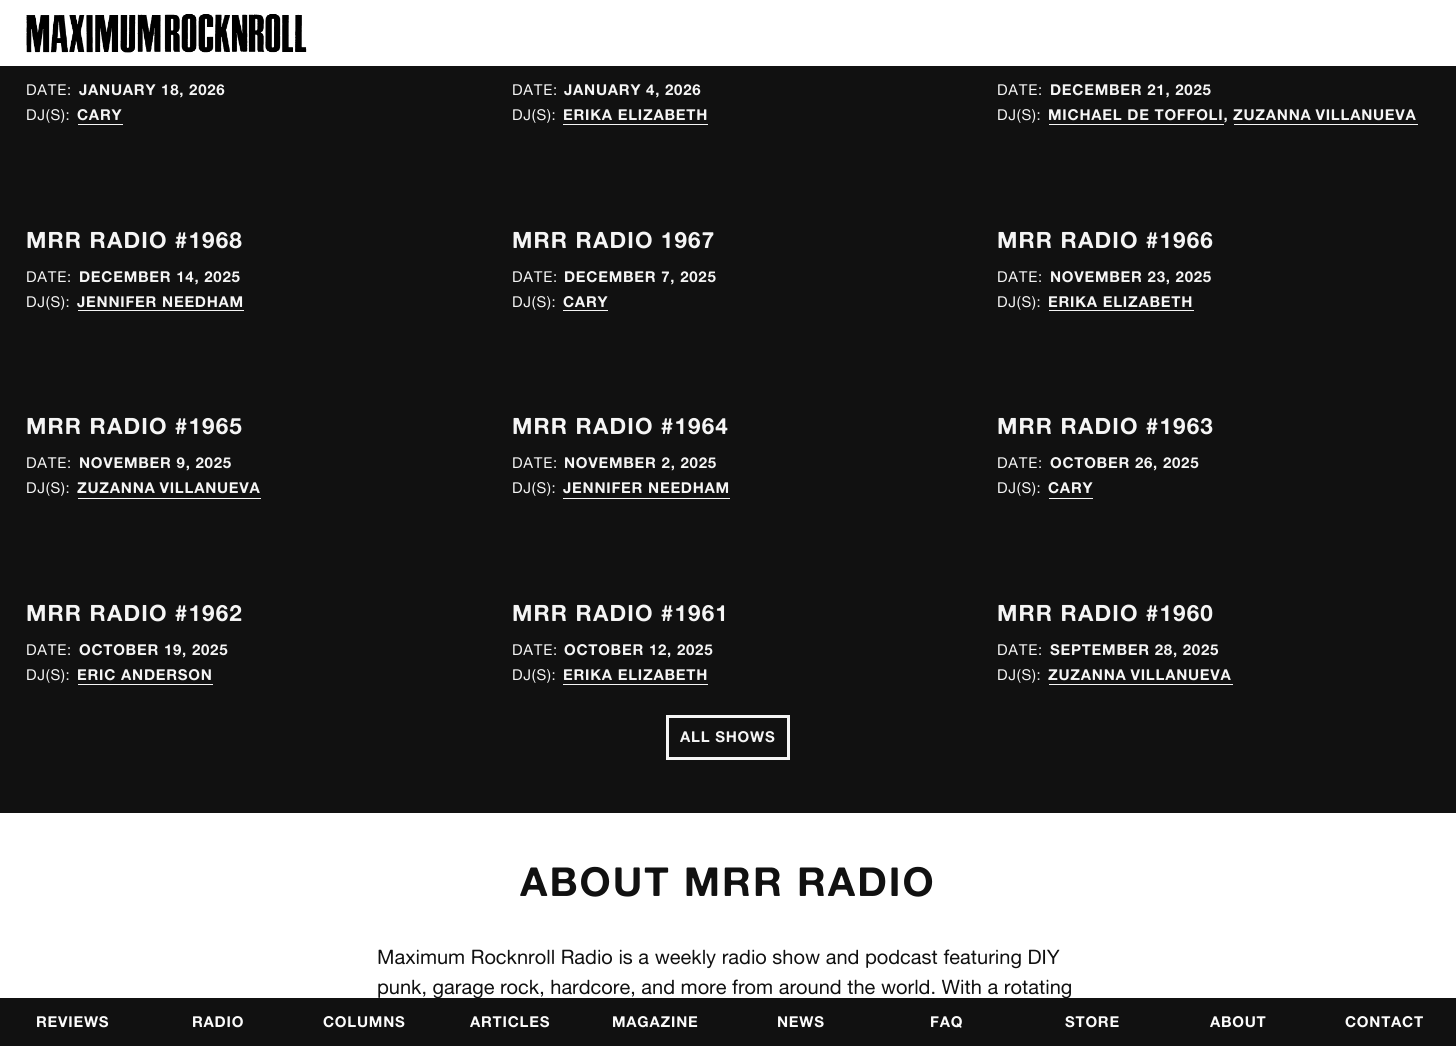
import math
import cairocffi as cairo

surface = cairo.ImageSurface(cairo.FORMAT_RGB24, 1456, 1046)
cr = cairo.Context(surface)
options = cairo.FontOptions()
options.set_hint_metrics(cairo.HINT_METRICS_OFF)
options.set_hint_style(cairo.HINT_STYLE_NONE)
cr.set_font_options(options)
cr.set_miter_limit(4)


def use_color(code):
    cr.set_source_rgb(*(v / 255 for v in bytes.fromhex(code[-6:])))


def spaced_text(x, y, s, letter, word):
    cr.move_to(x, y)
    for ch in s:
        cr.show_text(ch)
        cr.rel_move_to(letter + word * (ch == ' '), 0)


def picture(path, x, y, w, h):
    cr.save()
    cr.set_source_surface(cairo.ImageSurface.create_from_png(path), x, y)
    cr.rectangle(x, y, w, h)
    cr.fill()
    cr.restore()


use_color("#ffffff")
cr.paint()
use_color("#111111")
cr.rectangle(0, 66, 1456, 747)
cr.fill()
cr.select_font_face("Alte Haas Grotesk")
cr.set_font_size(15)
use_color("#f5f5f5")
spaced_text(26, 95, "DATE:", 0.75, 0)
cr.select_font_face("Alte Haas Grotesk", cairo.FONT_SLANT_NORMAL, cairo.FONT_WEIGHT_BOLD)
spaced_text(79, 95, "JANUARY 18, 2026", 0.75, 0)
cr.select_font_face("Alte Haas Grotesk")
spaced_text(26, 120, "DJ(S):", 0.75, 0)
cr.select_font_face("Alte Haas Grotesk", cairo.FONT_SLANT_NORMAL, cairo.FONT_WEIGHT_BOLD)
spaced_text(77, 120, "CARY", 0.75, 0)
cr.rectangle(78, 124, 45, 1)
cr.fill()
cr.select_font_face("Alte Haas Grotesk")
spaced_text(512, 95, "DATE:", 0.75, 0)
cr.select_font_face("Alte Haas Grotesk", cairo.FONT_SLANT_NORMAL, cairo.FONT_WEIGHT_BOLD)
spaced_text(564, 95, "JANUARY 4, 2026", 0.75, 0)
cr.select_font_face("Alte Haas Grotesk")
spaced_text(512, 120, "DJ(S):", 0.75, 0)
cr.select_font_face("Alte Haas Grotesk", cairo.FONT_SLANT_NORMAL, cairo.FONT_WEIGHT_BOLD)
spaced_text(563, 120, "ERIKA ELIZABETH", 0.75, 0)
cr.rectangle(563, 124, 145, 1)
cr.fill()
cr.select_font_face("Alte Haas Grotesk")
spaced_text(997, 95, "DATE:", 0.75, 0)
cr.select_font_face("Alte Haas Grotesk", cairo.FONT_SLANT_NORMAL, cairo.FONT_WEIGHT_BOLD)
spaced_text(1050, 95, "DECEMBER 21, 2025", 0.75, 0)
cr.select_font_face("Alte Haas Grotesk")
spaced_text(997, 120, "DJ(S):", 0.75, 0)
cr.select_font_face("Alte Haas Grotesk", cairo.FONT_SLANT_NORMAL, cairo.FONT_WEIGHT_BOLD)
spaced_text(1048, 120, "MICHAEL DE TOFFOLI,", 0.75, 0)
cr.rectangle(1049, 124, 175, 1)
cr.fill()
spaced_text(1233, 120, "ZUZANNA VILLANUEVA", 0.75, -1)
cr.rectangle(1234, 124, 184, 1)
cr.fill()
cr.set_font_size(22.5)
spaced_text(26, 248, "MRR RADIO #1968", 1.1, 0)
cr.select_font_face("Alte Haas Grotesk")
cr.set_font_size(15)
spaced_text(26, 282, "DATE:", 0.75, 0)
cr.select_font_face("Alte Haas Grotesk", cairo.FONT_SLANT_NORMAL, cairo.FONT_WEIGHT_BOLD)
spaced_text(79, 282, "DECEMBER 14, 2025", 0.75, 0)
cr.select_font_face("Alte Haas Grotesk")
spaced_text(26, 307, "DJ(S):", 0.75, 0)
cr.select_font_face("Alte Haas Grotesk", cairo.FONT_SLANT_NORMAL, cairo.FONT_WEIGHT_BOLD)
spaced_text(77, 307, "JENNIFER NEEDHAM", 0.75, 0)
cr.rectangle(78, 310, 166, 1)
cr.fill()
cr.set_font_size(22.5)
spaced_text(512, 248, "MRR RADIO 1967", 1.1, 0)
cr.select_font_face("Alte Haas Grotesk")
cr.set_font_size(15)
spaced_text(512, 282, "DATE:", 0.75, 0)
cr.select_font_face("Alte Haas Grotesk", cairo.FONT_SLANT_NORMAL, cairo.FONT_WEIGHT_BOLD)
spaced_text(564, 282, "DECEMBER 7, 2025", 0.75, 0)
cr.select_font_face("Alte Haas Grotesk")
spaced_text(512, 307, "DJ(S):", 0.75, 0)
cr.select_font_face("Alte Haas Grotesk", cairo.FONT_SLANT_NORMAL, cairo.FONT_WEIGHT_BOLD)
spaced_text(563, 307, "CARY", 0.75, 0)
cr.rectangle(563, 310, 45, 1)
cr.fill()
cr.set_font_size(22.5)
spaced_text(997, 248, "MRR RADIO #1966", 1.1, 0)
cr.select_font_face("Alte Haas Grotesk")
cr.set_font_size(15)
spaced_text(997, 282, "DATE:", 0.75, 0)
cr.select_font_face("Alte Haas Grotesk", cairo.FONT_SLANT_NORMAL, cairo.FONT_WEIGHT_BOLD)
spaced_text(1050, 282, "NOVEMBER 23, 2025", 0.75, 0)
cr.select_font_face("Alte Haas Grotesk")
spaced_text(997, 307, "DJ(S):", 0.75, 0)
cr.select_font_face("Alte Haas Grotesk", cairo.FONT_SLANT_NORMAL, cairo.FONT_WEIGHT_BOLD)
spaced_text(1048, 307, "ERIKA ELIZABETH", 0.75, 0)
cr.rectangle(1049, 310, 145, 1)
cr.fill()
cr.set_font_size(22.5)
spaced_text(26, 434, "MRR RADIO #1965", 1.1, 0)
cr.select_font_face("Alte Haas Grotesk")
cr.set_font_size(15)
spaced_text(26, 468, "DATE:", 0.75, 0)
cr.select_font_face("Alte Haas Grotesk", cairo.FONT_SLANT_NORMAL, cairo.FONT_WEIGHT_BOLD)
spaced_text(79, 468, "NOVEMBER 9, 2025", 0.75, 0)
cr.select_font_face("Alte Haas Grotesk")
spaced_text(26, 493, "DJ(S):", 0.75, 0)
cr.select_font_face("Alte Haas Grotesk", cairo.FONT_SLANT_NORMAL, cairo.FONT_WEIGHT_BOLD)
spaced_text(77, 493, "ZUZANNA VILLANUEVA", 0.75, -1)
cr.rectangle(78, 498, 183, 1)
cr.fill()
cr.set_font_size(22.5)
spaced_text(512, 434, "MRR RADIO #1964", 1.1, 0)
cr.select_font_face("Alte Haas Grotesk")
cr.set_font_size(15)
spaced_text(512, 468, "DATE:", 0.75, 0)
cr.select_font_face("Alte Haas Grotesk", cairo.FONT_SLANT_NORMAL, cairo.FONT_WEIGHT_BOLD)
spaced_text(564, 468, "NOVEMBER 2, 2025", 0.75, 0)
cr.select_font_face("Alte Haas Grotesk")
spaced_text(512, 493, "DJ(S):", 0.75, 0)
cr.select_font_face("Alte Haas Grotesk", cairo.FONT_SLANT_NORMAL, cairo.FONT_WEIGHT_BOLD)
spaced_text(563, 493, "JENNIFER NEEDHAM", 0.75, 0)
cr.rectangle(563, 498, 167, 1)
cr.fill()
cr.set_font_size(22.5)
spaced_text(997, 434, "MRR RADIO #1963", 1.1, 0)
cr.select_font_face("Alte Haas Grotesk")
cr.set_font_size(15)
spaced_text(997, 468, "DATE:", 0.75, 0)
cr.select_font_face("Alte Haas Grotesk", cairo.FONT_SLANT_NORMAL, cairo.FONT_WEIGHT_BOLD)
spaced_text(1050, 468, "OCTOBER 26, 2025", 0.75, 0)
cr.select_font_face("Alte Haas Grotesk")
spaced_text(997, 493, "DJ(S):", 0.75, 0)
cr.select_font_face("Alte Haas Grotesk", cairo.FONT_SLANT_NORMAL, cairo.FONT_WEIGHT_BOLD)
spaced_text(1048, 493, "CARY", 0.75, 0)
cr.rectangle(1049, 498, 44, 1)
cr.fill()
cr.set_font_size(22.5)
spaced_text(26, 621, "MRR RADIO #1962", 1.1, 0)
cr.select_font_face("Alte Haas Grotesk")
cr.set_font_size(15)
spaced_text(26, 655, "DATE:", 0.75, 0)
cr.select_font_face("Alte Haas Grotesk", cairo.FONT_SLANT_NORMAL, cairo.FONT_WEIGHT_BOLD)
spaced_text(79, 655, "OCTOBER 19, 2025", 0.75, 0)
cr.select_font_face("Alte Haas Grotesk")
spaced_text(26, 680, "DJ(S):", 0.75, 0)
cr.select_font_face("Alte Haas Grotesk", cairo.FONT_SLANT_NORMAL, cairo.FONT_WEIGHT_BOLD)
spaced_text(77, 680, "ERIC ANDERSON", 0.75, 0)
cr.rectangle(78, 684, 135, 1)
cr.fill()
cr.set_font_size(22.5)
spaced_text(512, 621, "MRR RADIO #1961", 1.1, 0)
cr.select_font_face("Alte Haas Grotesk")
cr.set_font_size(15)
spaced_text(512, 655, "DATE:", 0.75, 0)
cr.select_font_face("Alte Haas Grotesk", cairo.FONT_SLANT_NORMAL, cairo.FONT_WEIGHT_BOLD)
spaced_text(564, 655, "OCTOBER 12, 2025", 0.75, 0)
cr.select_font_face("Alte Haas Grotesk")
spaced_text(512, 680, "DJ(S):", 0.75, 0)
cr.select_font_face("Alte Haas Grotesk", cairo.FONT_SLANT_NORMAL, cairo.FONT_WEIGHT_BOLD)
spaced_text(563, 680, "ERIKA ELIZABETH", 0.75, 0)
cr.rectangle(563, 684, 145, 1)
cr.fill()
cr.set_font_size(22.5)
spaced_text(997, 621, "MRR RADIO #1960", 1.1, 0)
cr.select_font_face("Alte Haas Grotesk")
cr.set_font_size(15)
spaced_text(997, 655, "DATE:", 0.75, 0)
cr.select_font_face("Alte Haas Grotesk", cairo.FONT_SLANT_NORMAL, cairo.FONT_WEIGHT_BOLD)
spaced_text(1050, 655, "SEPTEMBER 28, 2025", 0.75, 0)
cr.select_font_face("Alte Haas Grotesk")
spaced_text(997, 680, "DJ(S):", 0.75, 0)
cr.select_font_face("Alte Haas Grotesk", cairo.FONT_SLANT_NORMAL, cairo.FONT_WEIGHT_BOLD)
spaced_text(1048, 680, "ZUZANNA VILLANUEVA", 0.75, -1)
cr.rectangle(1049, 684, 184, 1)
cr.fill()
cr.rectangle(667.5, 716.5, 121, 42)
cr.set_line_width(3)
cr.stroke()
spaced_text(680, 742, "ALL SHOWS", 0.75, 0)
cr.set_font_size(40)
use_color("#111111")
spaced_text(520, 896, "ABOUT MRR RADIO", 2, 0)
cr.select_font_face("Alte Haas Grotesk")
cr.set_font_size(20)
cr.move_to(377, 964)
cr.show_text("Maximum Rocknroll Radio is a weekly radio show and podcast featuring DIY")
cr.move_to(377, 994)
cr.show_text("punk, garage rock, hardcore, and more from around the world. With a rotating")
picture("img1.png", 26, 13, 281, 40)
cr.rectangle(0, 998, 1456, 48)
cr.fill()
cr.select_font_face("Alte Haas Grotesk", cairo.FONT_SLANT_NORMAL, cairo.FONT_WEIGHT_BOLD)
cr.set_font_size(15)
use_color("#fcfcfc")
spaced_text(36, 1027, "REVIEWS", 0.75, 0)
spaced_text(192, 1027, "RADIO", 0.75, 0)
spaced_text(323, 1027, "COLUMNS", 0.75, 0)
spaced_text(470, 1027, "ARTICLES", 0.75, 0)
spaced_text(612, 1027, "MAGAZINE", 0.75, 0)
spaced_text(777, 1027, "NEWS", 0.75, 0)
spaced_text(930, 1027, "FAQ", 0.75, 0)
spaced_text(1065, 1027, "STORE", 0.75, 0)
spaced_text(1210, 1027, "ABOUT", 0.75, 0)
spaced_text(1345, 1027, "CONTACT", 0.75, 0)
surface.write_to_png("result.png")
